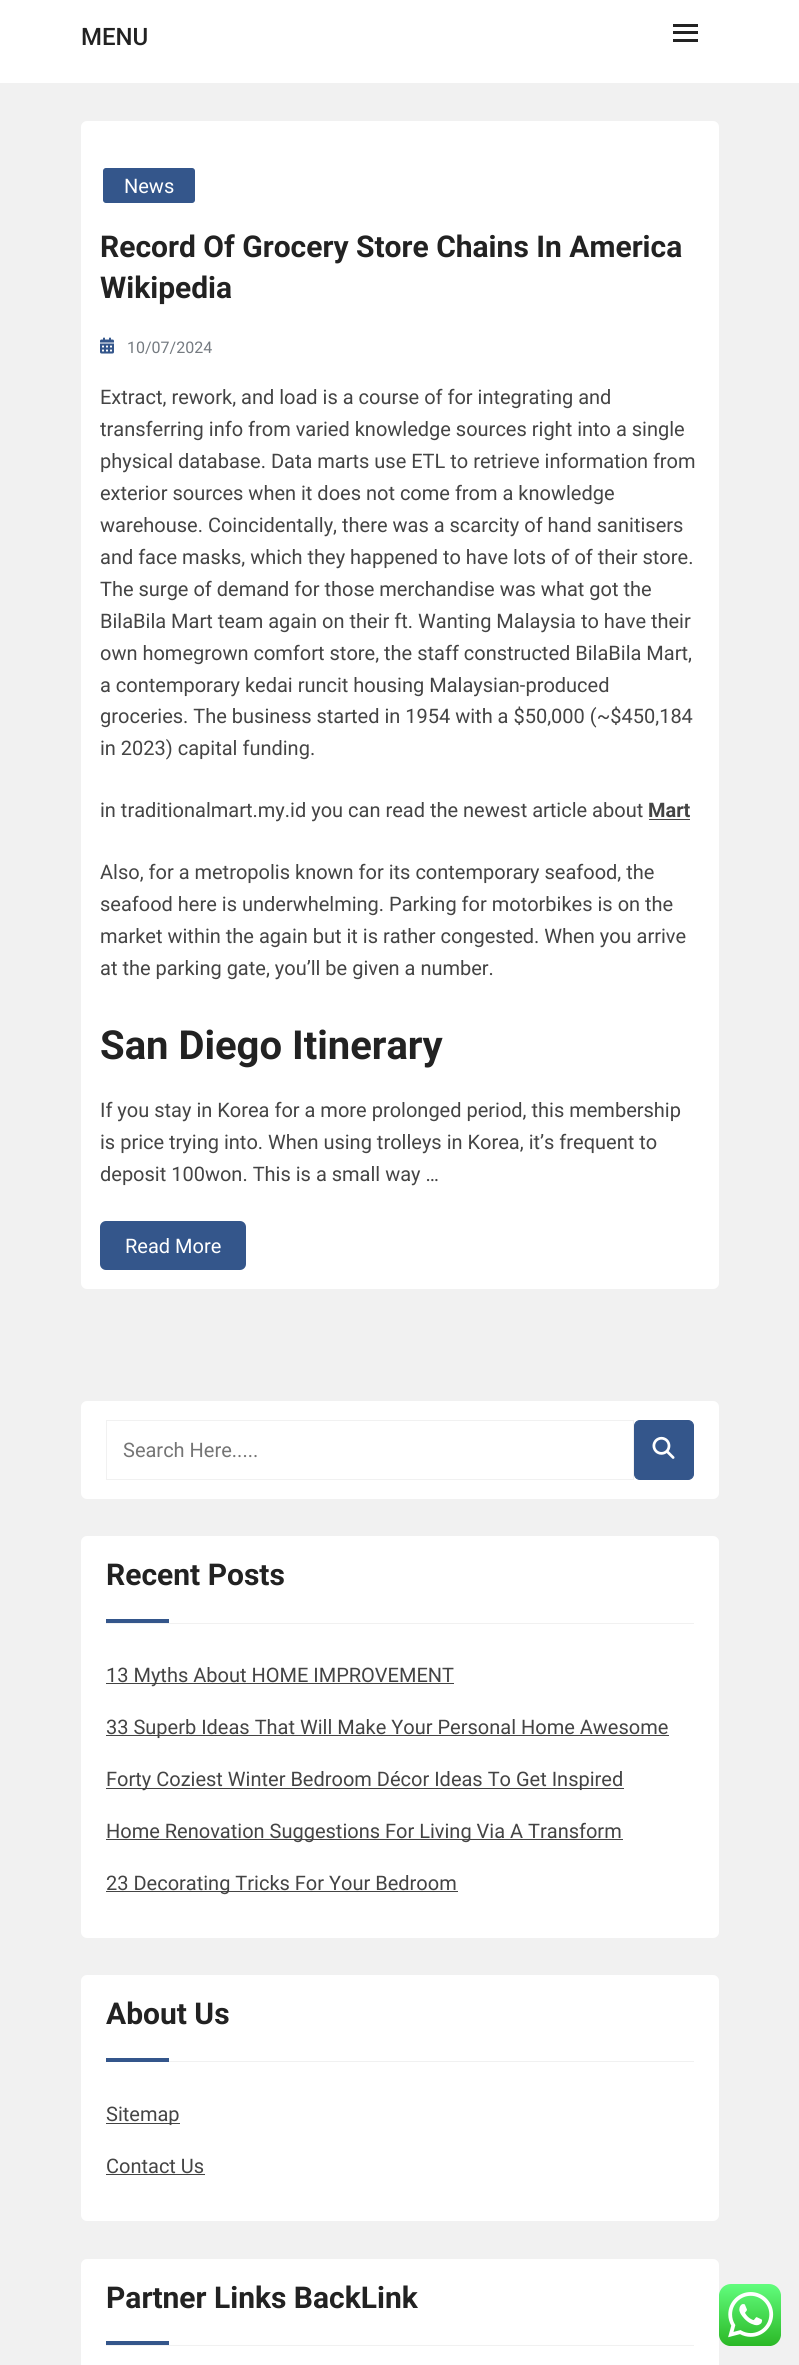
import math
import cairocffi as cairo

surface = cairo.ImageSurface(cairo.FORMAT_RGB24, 799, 2365)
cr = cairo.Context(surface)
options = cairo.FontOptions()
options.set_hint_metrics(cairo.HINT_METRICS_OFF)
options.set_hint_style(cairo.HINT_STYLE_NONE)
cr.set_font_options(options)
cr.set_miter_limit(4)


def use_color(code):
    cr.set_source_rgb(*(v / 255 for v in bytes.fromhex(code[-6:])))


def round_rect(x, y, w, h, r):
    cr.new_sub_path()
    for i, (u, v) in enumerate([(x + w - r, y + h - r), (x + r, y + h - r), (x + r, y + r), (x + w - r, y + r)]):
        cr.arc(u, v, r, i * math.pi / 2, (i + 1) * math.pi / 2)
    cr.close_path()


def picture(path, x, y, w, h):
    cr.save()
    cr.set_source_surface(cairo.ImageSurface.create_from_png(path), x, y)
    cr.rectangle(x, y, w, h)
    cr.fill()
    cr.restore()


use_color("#f1f1f1")
cr.paint()
use_color("#ffffff")
cr.rectangle(0, 0, 799, 83)
cr.fill()
use_color("#222222")
cr.rectangle(673, 24, 25, 3)
cr.fill()
cr.select_font_face("Roboto Medium")
cr.set_font_size(24)
cr.move_to(81, 45)
cr.show_text("MENU")
cr.rectangle(673, 31, 25, 3)
cr.fill()
cr.rectangle(673, 39, 25, 3)
cr.fill()
use_color("#ffffff")
round_rect(81, 121, 638, 1168, 6)
cr.fill()
use_color("#34568b")
round_rect(101.5, 166.5, 95, 38, 4.5)
cr.fill_preserve()
use_color("#ffffff")
cr.set_line_width(3)
cr.stroke()
cr.select_font_face("Roboto")
cr.set_font_size(20)
cr.move_to(124, 193)
cr.show_text("News")
cr.select_font_face("Roboto", cairo.FONT_SLANT_NORMAL, cairo.FONT_WEIGHT_BOLD)
cr.set_font_size(30)
use_color("#222222")
cr.move_to(100, 257)
cr.show_text("Record Of Grocery Store Chains In America")
cr.move_to(100, 298)
cr.show_text("Wikipedia")
picture("img1.png", 100, 337, 14, 17)
cr.select_font_face("Roboto")
cr.set_font_size(16)
use_color("#757b81")
cr.move_to(127, 353)
cr.show_text("10/07/2024")
cr.set_font_size(20)
use_color("#444444")
cr.move_to(100, 404)
cr.show_text("Extract, rework, and load is a course of for integrating and")
cr.move_to(100, 436)
cr.show_text("transferring info from varied knowledge sources right into a single")
cr.move_to(100, 468)
cr.show_text("physical database. Data marts use ETL to retrieve information from")
cr.move_to(100, 500)
cr.show_text("exterior sources when it does not come from a knowledge")
cr.move_to(100, 532)
cr.show_text("warehouse. Coincidentally, there was a scarcity of hand sanitisers")
cr.move_to(100, 564)
cr.show_text("and face masks, which they happened to have lots of of their store.")
cr.move_to(100, 596)
cr.show_text("The surge of demand for those merchandise was what got the")
cr.move_to(100, 628)
cr.show_text("BilaBila Mart team again on their ft. Wanting Malaysia to have their")
cr.move_to(100, 660)
cr.show_text("own homegrown comfort store, the staff constructed BilaBila Mart,")
cr.move_to(100, 692)
cr.show_text("a contemporary kedai runcit housing Malaysian-produced")
cr.move_to(100, 723)
cr.show_text("groceries. The business started in 1954 with a $50,000 (~$450,184")
cr.move_to(100, 755)
cr.show_text("in 2023) capital funding.")
cr.move_to(100, 817)
cr.show_text("in traditionalmart.my.id you can read the newest article about")
cr.select_font_face("Roboto", cairo.FONT_SLANT_NORMAL, cairo.FONT_WEIGHT_BOLD)
cr.move_to(648, 817)
cr.show_text("Mart")
cr.rectangle(649, 819, 41, 1)
cr.fill()
cr.select_font_face("Roboto")
cr.move_to(100, 879)
cr.show_text("Also, for a metropolis known for its contemporary seafood, the")
cr.move_to(100, 911)
cr.show_text("seafood here is underwhelming. Parking for motorbikes is on the")
cr.move_to(100, 943)
cr.show_text("market within the again but it is rather congested. When you arrive")
cr.move_to(100, 975)
cr.show_text("at the parking gate, you’ll be given a number.")
cr.select_font_face("Roboto", cairo.FONT_SLANT_NORMAL, cairo.FONT_WEIGHT_BOLD)
cr.set_font_size(40)
use_color("#222222")
cr.move_to(100, 1059)
cr.show_text("San Diego Itinerary")
cr.select_font_face("Roboto")
cr.set_font_size(20)
use_color("#444444")
cr.move_to(100, 1117)
cr.show_text("If you stay in Korea for a more prolonged period, this membership")
cr.move_to(100, 1149)
cr.show_text("is price trying into. When using trolleys in Korea, it’s frequent to")
cr.move_to(100, 1181)
cr.show_text("deposit 100won. This is a small way …")
use_color("#34568b")
round_rect(100, 1221, 146, 49, 6)
cr.fill()
use_color("#ffffff")
cr.move_to(125, 1253)
cr.show_text("Read More")
round_rect(81, 1401, 638, 98, 6)
cr.fill()
cr.rectangle(106.5, 1420.5, 527, 59)
use_color("#f1f1f1")
cr.set_line_width(1)
cr.stroke()
use_color("#757575")
cr.move_to(123, 1457)
cr.show_text("Search Here.....")
use_color("#34568b")
round_rect(634.5, 1420.5, 59, 59, 5.5)
cr.fill_preserve()
cr.stroke()
picture("img2.png", 652, 1436, 23, 23)
use_color("#ffffff")
round_rect(81, 1536, 638, 402, 6)
cr.fill()
use_color("#f1f1f1")
cr.rectangle(106, 1623, 588, 1)
cr.fill()
cr.select_font_face("Roboto", cairo.FONT_SLANT_NORMAL, cairo.FONT_WEIGHT_BOLD)
cr.set_font_size(30)
use_color("#222222")
cr.move_to(106, 1585)
cr.show_text("Recent Posts")
use_color("#34568b")
cr.rectangle(106, 1619, 63, 4)
cr.fill()
use_color("#444444")
cr.rectangle(106, 1683, 348, 1)
cr.fill()
cr.select_font_face("Roboto")
cr.set_font_size(20)
cr.move_to(106, 1682)
cr.show_text("13 Myths About HOME IMPROVEMENT")
cr.rectangle(106, 1735, 563, 1)
cr.fill()
cr.move_to(106, 1734)
cr.show_text("33 Superb Ideas That Will Make Your Personal Home Awesome")
cr.rectangle(106, 1788, 518, 1)
cr.fill()
cr.move_to(106, 1786)
cr.show_text("Forty Coziest Winter Bedroom Décor Ideas To Get Inspired")
cr.rectangle(106, 1839, 517, 1)
cr.fill()
cr.move_to(106, 1838)
cr.show_text("Home Renovation Suggestions For Living Via A Transform")
cr.rectangle(106, 1891, 352, 1)
cr.fill()
cr.move_to(106, 1890)
cr.show_text("23 Decorating Tricks For Your Bedroom")
use_color("#ffffff")
round_rect(81, 1975, 638, 246, 6)
cr.fill()
use_color("#f1f1f1")
cr.rectangle(169, 2061, 525, 1)
cr.fill()
cr.select_font_face("Roboto", cairo.FONT_SLANT_NORMAL, cairo.FONT_WEIGHT_BOLD)
cr.set_font_size(30)
use_color("#222222")
cr.move_to(106, 2024)
cr.show_text("About Us")
use_color("#34568b")
cr.rectangle(106, 2058, 63, 4)
cr.fill()
use_color("#444444")
cr.rectangle(106, 2123, 74, 1)
cr.fill()
cr.select_font_face("Roboto")
cr.set_font_size(20)
cr.move_to(106, 2121)
cr.show_text("Sitemap")
cr.move_to(106, 2173)
cr.show_text("Contact Us")
cr.rectangle(106, 2174, 99, 1)
cr.fill()
use_color("#ffffff")
round_rect(81, 2259, 638, 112, 6)
cr.fill()
use_color("#f1f1f1")
cr.rectangle(106, 2345, 588, 1)
cr.fill()
cr.select_font_face("Roboto", cairo.FONT_SLANT_NORMAL, cairo.FONT_WEIGHT_BOLD)
cr.set_font_size(30)
use_color("#222222")
cr.move_to(106, 2308)
cr.show_text("Partner Links BackLink")
use_color("#34568b")
cr.rectangle(106, 2341, 63, 4)
cr.fill()
picture("img3.png", 719, 2284, 62, 62)
surface.write_to_png("result.png")
